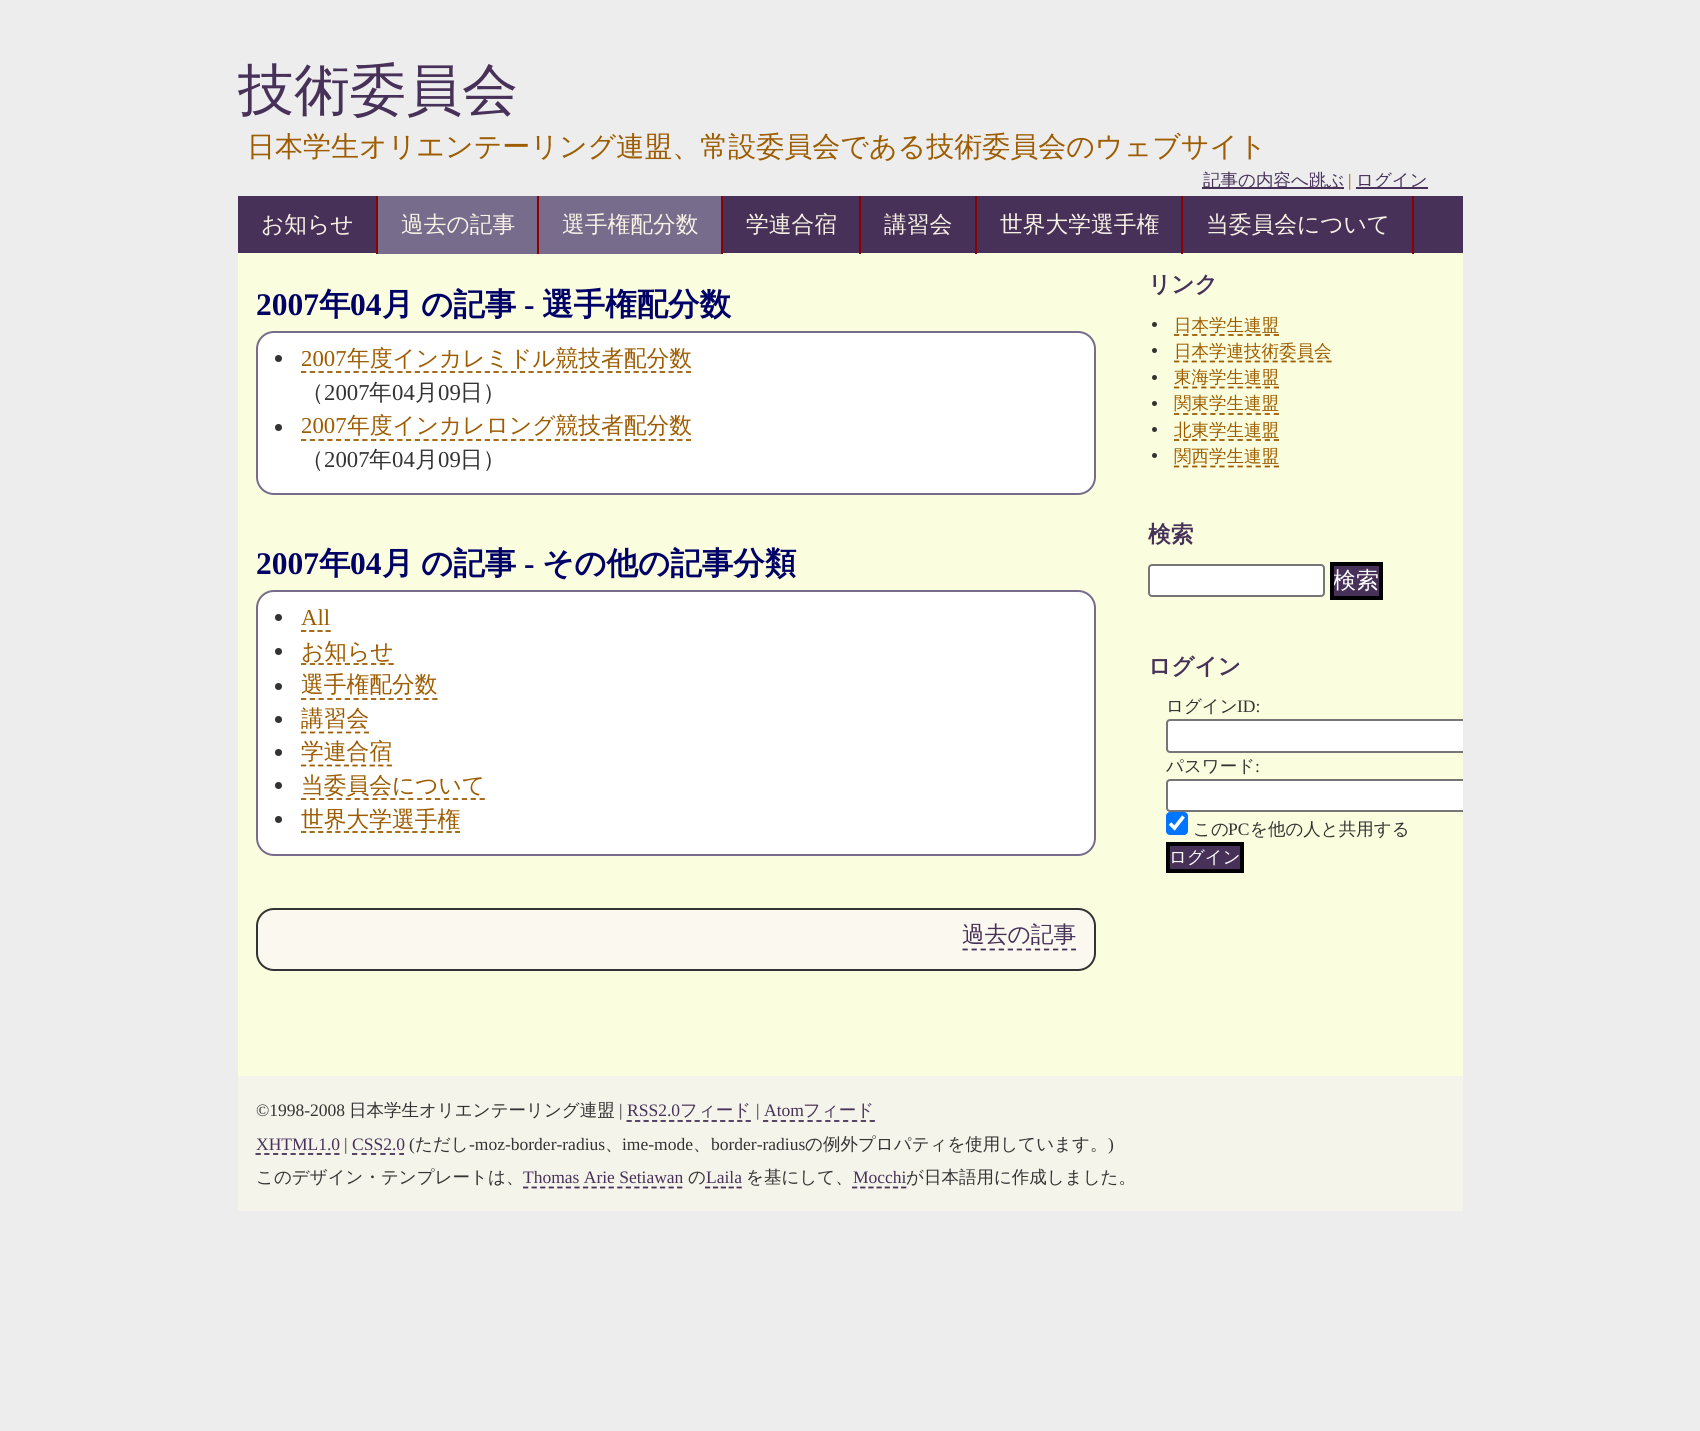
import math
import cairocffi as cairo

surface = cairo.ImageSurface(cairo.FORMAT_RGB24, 1700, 1431)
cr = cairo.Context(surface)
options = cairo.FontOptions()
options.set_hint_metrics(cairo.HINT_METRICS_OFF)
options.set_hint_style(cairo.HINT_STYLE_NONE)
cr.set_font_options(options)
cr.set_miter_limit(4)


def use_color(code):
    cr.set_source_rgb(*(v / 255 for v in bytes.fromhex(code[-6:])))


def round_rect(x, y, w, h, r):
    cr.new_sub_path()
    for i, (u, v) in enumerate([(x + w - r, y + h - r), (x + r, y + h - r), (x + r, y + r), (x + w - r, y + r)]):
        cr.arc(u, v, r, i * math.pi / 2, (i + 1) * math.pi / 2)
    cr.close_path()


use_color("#ededed")
cr.paint()
cr.select_font_face("WenQuanYi Zen Hei Medium")
cr.set_font_size(56)
use_color("#473159")
cr.move_to(238, 109)
cr.show_text("技術委員会")
cr.set_font_size(28)
use_color("#9d5c00")
cr.move_to(247, 156)
cr.show_text("日本学生オリエンテーリング連盟、常設委員会である技術委員会のウェブサイト")
use_color("#473159")
cr.rectangle(1202, 187, 142, 2)
cr.fill()
cr.set_font_size(17.5)
cr.move_to(1203, 186)
cr.show_text("記事の内容へ跳ぶ")
cr.select_font_face("Liberation Serif")
use_color("#9d5c00")
cr.move_to(1348, 186)
cr.show_text("|")
use_color("#473159")
cr.rectangle(1356, 187, 72, 2)
cr.fill()
cr.select_font_face("WenQuanYi Zen Hei Medium")
cr.move_to(1356, 186)
cr.show_text("ログイン")
cr.rectangle(238, 196, 1225, 57)
cr.fill()
use_color("#fafede")
cr.rectangle(238, 253, 1225, 823)
cr.fill()
use_color("#8c0000")
cr.rectangle(376, 196, 2, 58)
cr.fill()
cr.set_font_size(22.75)
use_color("#f8f2e5")
cr.move_to(261, 232)
cr.show_text("お知らせ")
use_color("#786c8c")
cr.rectangle(378, 196, 159, 58)
cr.fill()
use_color("#8c0000")
cr.rectangle(537, 196, 2, 58)
cr.fill()
use_color("#f8f2e5")
cr.move_to(401, 232)
cr.show_text("過去の記事")
use_color("#786c8c")
cr.rectangle(539, 196, 182, 58)
cr.fill()
use_color("#8c0000")
cr.rectangle(721, 196, 2, 58)
cr.fill()
use_color("#f8f2e5")
cr.move_to(562, 232)
cr.show_text("選手権配分数")
use_color("#8c0000")
cr.rectangle(859, 196, 2, 58)
cr.fill()
use_color("#f8f2e5")
cr.move_to(746, 232)
cr.show_text("学連合宿")
use_color("#8c0000")
cr.rectangle(975, 196, 2, 58)
cr.fill()
use_color("#f8f2e5")
cr.move_to(884, 232)
cr.show_text("講習会")
use_color("#8c0000")
cr.rectangle(1181, 196, 2, 58)
cr.fill()
use_color("#f8f2e5")
cr.move_to(1000, 232)
cr.show_text("世界大学選手権")
use_color("#8c0000")
cr.rectangle(1412, 196, 2, 58)
cr.fill()
use_color("#f8f2e5")
cr.move_to(1206, 232)
cr.show_text("当委員会について")
cr.select_font_face("Liberation Serif", cairo.FONT_SLANT_NORMAL, cairo.FONT_WEIGHT_BOLD)
cr.set_font_size(31.5)
use_color("#000066")
cr.move_to(256, 315)
cr.show_text("2007")
cr.select_font_face("WenQuanYi Zen Hei", cairo.FONT_SLANT_NORMAL, cairo.FONT_WEIGHT_BOLD)
cr.move_to(319, 315)
cr.show_text("年")
cr.select_font_face("Liberation Serif", cairo.FONT_SLANT_NORMAL, cairo.FONT_WEIGHT_BOLD)
cr.move_to(350, 315)
cr.show_text("04")
cr.select_font_face("WenQuanYi Zen Hei", cairo.FONT_SLANT_NORMAL, cairo.FONT_WEIGHT_BOLD)
cr.move_to(382, 315)
cr.show_text("月")
cr.move_to(421, 315)
cr.show_text("の記事")
cr.select_font_face("Liberation Serif", cairo.FONT_SLANT_NORMAL, cairo.FONT_WEIGHT_BOLD)
cr.move_to(524, 315)
cr.show_text("-")
cr.select_font_face("WenQuanYi Zen Hei", cairo.FONT_SLANT_NORMAL, cairo.FONT_WEIGHT_BOLD)
cr.move_to(542, 315)
cr.show_text("選手権配分数")
use_color("#ffffff")
round_rect(257, 332, 838, 162, 17)
cr.fill_preserve()
use_color("#786c8c")
cr.stroke()
use_color("#333333")
cr.arc(278.5, 358.5, 3.5, 0, 2 * math.pi)
cr.fill()
cr.select_font_face("Liberation Serif")
cr.set_font_size(22.75)
use_color("#9d5c00")
cr.move_to(301, 366)
cr.show_text("2007")
cr.new_path()
cr.move_to(301, 372)
cr.line_to(691, 372)
cr.set_line_width(1.8)
cr.set_dash([5.25, 3.5])
cr.stroke()
cr.select_font_face("WenQuanYi Zen Hei Medium")
cr.move_to(347, 366)
cr.show_text("年度インカレミドル競技者配分数")
use_color("#333333")
cr.move_to(301, 400)
cr.show_text("（")
cr.select_font_face("Liberation Serif")
cr.move_to(324, 400)
cr.show_text("2007")
cr.select_font_face("WenQuanYi Zen Hei Medium")
cr.move_to(369, 400)
cr.show_text("年")
cr.select_font_face("Liberation Serif")
cr.move_to(392, 400)
cr.show_text("04")
cr.select_font_face("WenQuanYi Zen Hei Medium")
cr.move_to(415, 400)
cr.show_text("月")
cr.select_font_face("Liberation Serif")
cr.move_to(438, 400)
cr.show_text("09")
cr.select_font_face("WenQuanYi Zen Hei Medium")
cr.move_to(460, 400)
cr.show_text("日）")
cr.new_path()
cr.arc(278.5, 427.5, 3.5, 0, 2 * math.pi)
cr.fill()
cr.select_font_face("Liberation Serif")
use_color("#9d5c00")
cr.move_to(301, 433)
cr.show_text("2007")
cr.new_path()
cr.move_to(301, 440)
cr.line_to(691, 440)
cr.stroke()
cr.select_font_face("WenQuanYi Zen Hei Medium")
cr.move_to(347, 433)
cr.show_text("年度インカレロング競技者配分数")
use_color("#333333")
cr.move_to(301, 467)
cr.show_text("（")
cr.select_font_face("Liberation Serif")
cr.move_to(324, 467)
cr.show_text("2007")
cr.select_font_face("WenQuanYi Zen Hei Medium")
cr.move_to(369, 467)
cr.show_text("年")
cr.select_font_face("Liberation Serif")
cr.move_to(392, 467)
cr.show_text("04")
cr.select_font_face("WenQuanYi Zen Hei Medium")
cr.move_to(415, 467)
cr.show_text("月")
cr.select_font_face("Liberation Serif")
cr.move_to(438, 467)
cr.show_text("09")
cr.select_font_face("WenQuanYi Zen Hei Medium")
cr.move_to(460, 467)
cr.show_text("日）")
cr.select_font_face("Liberation Serif", cairo.FONT_SLANT_NORMAL, cairo.FONT_WEIGHT_BOLD)
cr.set_font_size(31.5)
use_color("#000066")
cr.move_to(256, 574)
cr.show_text("2007")
cr.select_font_face("WenQuanYi Zen Hei", cairo.FONT_SLANT_NORMAL, cairo.FONT_WEIGHT_BOLD)
cr.move_to(319, 574)
cr.show_text("年")
cr.select_font_face("Liberation Serif", cairo.FONT_SLANT_NORMAL, cairo.FONT_WEIGHT_BOLD)
cr.move_to(350, 574)
cr.show_text("04")
cr.select_font_face("WenQuanYi Zen Hei", cairo.FONT_SLANT_NORMAL, cairo.FONT_WEIGHT_BOLD)
cr.move_to(382, 574)
cr.show_text("月")
cr.move_to(421, 574)
cr.show_text("の記事")
cr.select_font_face("Liberation Serif", cairo.FONT_SLANT_NORMAL, cairo.FONT_WEIGHT_BOLD)
cr.move_to(524, 574)
cr.show_text("-")
cr.select_font_face("WenQuanYi Zen Hei", cairo.FONT_SLANT_NORMAL, cairo.FONT_WEIGHT_BOLD)
cr.move_to(542, 574)
cr.show_text("その他の記事分類")
use_color("#ffffff")
round_rect(257, 591, 838, 264, 17)
cr.fill_preserve()
use_color("#786c8c")
cr.set_line_width(2)
cr.set_dash([])
cr.stroke()
use_color("#333333")
cr.arc(278.5, 617.5, 3.5, 0, 2 * math.pi)
cr.fill()
cr.select_font_face("Liberation Serif")
cr.set_font_size(22.75)
use_color("#9d5c00")
cr.move_to(301, 625)
cr.show_text("All")
cr.new_path()
cr.move_to(301, 631)
cr.line_to(331, 631)
cr.set_line_width(1.8)
cr.set_dash([5.25, 2.92])
cr.stroke()
use_color("#333333")
cr.arc(278.5, 651.5, 3.5, 0, 2 * math.pi)
cr.fill()
cr.select_font_face("WenQuanYi Zen Hei Medium")
use_color("#9d5c00")
cr.move_to(301, 659)
cr.show_text("お知らせ")
cr.new_path()
cr.move_to(301, 664)
cr.line_to(394, 664)
cr.set_dash([5.25, 3.5])
cr.stroke()
use_color("#333333")
cr.arc(278.5, 686.5, 3.5, 0, 2 * math.pi)
cr.fill()
use_color("#9d5c00")
cr.move_to(301, 692)
cr.show_text("選手権配分数")
cr.new_path()
cr.move_to(301, 699)
cr.line_to(437.5, 699)
cr.stroke()
use_color("#333333")
cr.arc(278.5, 719.5, 3.5, 0, 2 * math.pi)
cr.fill()
use_color("#9d5c00")
cr.move_to(301, 726)
cr.show_text("講習会")
cr.new_path()
cr.move_to(301, 732.5)
cr.line_to(369, 732.5)
cr.set_dash([5.25, 3.75])
cr.stroke()
use_color("#333333")
cr.arc(278.5, 752.5, 3.5, 0, 2 * math.pi)
cr.fill()
use_color("#9d5c00")
cr.move_to(301, 759)
cr.show_text("学連合宿")
cr.new_path()
cr.move_to(301, 765.5)
cr.line_to(392, 765.5)
cr.set_dash([5.25, 3.32])
cr.stroke()
use_color("#333333")
cr.arc(278.5, 785.5, 3.5, 0, 2 * math.pi)
cr.fill()
use_color("#9d5c00")
cr.move_to(301, 793)
cr.show_text("当委員会について")
cr.new_path()
cr.move_to(301, 799)
cr.line_to(485, 799)
cr.set_dash([5.25, 3.68])
cr.stroke()
use_color("#333333")
cr.arc(278.5, 819.5, 3.5, 0, 2 * math.pi)
cr.fill()
use_color("#9d5c00")
cr.move_to(301, 827)
cr.show_text("世界大学選手権")
cr.new_path()
cr.move_to(301, 832)
cr.line_to(460, 832)
cr.set_dash([5.25, 3.31])
cr.stroke()
use_color("#fbf8ef")
round_rect(257, 909, 838, 61, 17)
cr.fill_preserve()
use_color("#333333")
cr.set_line_width(2)
cr.set_dash([])
cr.stroke()
use_color("#473159")
cr.move_to(962, 942)
cr.show_text("過去の記事")
cr.new_path()
cr.move_to(962.5, 949.5)
cr.line_to(1076, 949.5)
cr.set_line_width(1.8)
cr.set_dash([5.25, 3.8])
cr.stroke()
cr.select_font_face("WenQuanYi Zen Hei", cairo.FONT_SLANT_NORMAL, cairo.FONT_WEIGHT_BOLD)
cr.move_to(1148, 292)
cr.show_text("リンク")
use_color("#333333")
cr.new_path()
cr.arc(1154.5, 324.5, 2.5, 0, 2 * math.pi)
cr.fill()
cr.select_font_face("WenQuanYi Zen Hei Medium")
cr.set_font_size(17.5)
use_color("#9d5c00")
cr.move_to(1174, 331)
cr.show_text("日本学生連盟")
cr.new_path()
cr.move_to(1174, 335)
cr.line_to(1279, 335)
cr.set_dash([5.25, 3.82])
cr.stroke()
use_color("#333333")
cr.arc(1154.5, 350.5, 2.5, 0, 2 * math.pi)
cr.fill()
use_color("#9d5c00")
cr.move_to(1174, 357)
cr.show_text("日本学連技術委員会")
cr.new_path()
cr.move_to(1174, 361.5)
cr.line_to(1332, 361.5)
cr.set_dash([5.25, 3.71])
cr.stroke()
use_color("#333333")
cr.arc(1154.5, 377.5, 2.5, 0, 2 * math.pi)
cr.fill()
use_color("#9d5c00")
cr.move_to(1174, 383)
cr.show_text("東海学生連盟")
cr.new_path()
cr.move_to(1174, 387.5)
cr.line_to(1279, 387.5)
cr.set_dash([5.25, 3.82])
cr.stroke()
use_color("#333333")
cr.arc(1154.5, 403.5, 2.5, 0, 2 * math.pi)
cr.fill()
use_color("#9d5c00")
cr.move_to(1174, 409)
cr.show_text("関東学生連盟")
cr.new_path()
cr.move_to(1174, 414)
cr.line_to(1279, 414)
cr.stroke()
use_color("#333333")
cr.arc(1154.5, 429.5, 2.5, 0, 2 * math.pi)
cr.fill()
use_color("#9d5c00")
cr.move_to(1174, 436)
cr.show_text("北東学生連盟")
cr.new_path()
cr.move_to(1174, 440)
cr.line_to(1279, 440)
cr.stroke()
use_color("#333333")
cr.arc(1154.5, 455.5, 2.5, 0, 2 * math.pi)
cr.fill()
use_color("#9d5c00")
cr.move_to(1174, 462)
cr.show_text("関西学生連盟")
cr.new_path()
cr.move_to(1174, 466.5)
cr.line_to(1279, 466.5)
cr.stroke()
cr.select_font_face("WenQuanYi Zen Hei", cairo.FONT_SLANT_NORMAL, cairo.FONT_WEIGHT_BOLD)
cr.set_font_size(22.75)
use_color("#473159")
cr.move_to(1148, 542)
cr.show_text("検索")
use_color("#ffffff")
round_rect(1149, 565, 175, 31, 3)
cr.fill_preserve()
use_color("#767676")
cr.set_line_width(2)
cr.set_dash([])
cr.stroke()
use_color("#473159")
cr.rectangle(1332, 564, 49, 34)
cr.fill_preserve()
use_color("#000000")
cr.set_line_width(4)
cr.stroke()
cr.save()
cr.rectangle(1334, 565, 45, 32)
cr.clip()
cr.select_font_face("WenQuanYi Zen Hei Medium")
cr.set_font_size(23)
use_color("#ffffff")
cr.move_to(1333, 588)
cr.show_text("検索")
cr.restore()
use_color("#473159")
cr.move_to(1148, 674)
cr.show_text("ログイン")
cr.select_font_face("WenQuanYi Zen Hei Medium")
cr.set_font_size(17.5)
use_color("#333333")
cr.move_to(1166, 712)
cr.show_text("ログイン")
cr.select_font_face("Liberation Serif")
cr.move_to(1237, 712)
cr.show_text("ID:")
use_color("#ffffff")
cr.new_path()
cr.move_to(1170, 719)
cr.line_to(1463, 719)
cr.line_to(1463, 753)
cr.line_to(1170, 753)
cr.curve_to(1168, 753, 1166, 751, 1166, 749)
cr.line_to(1166, 723)
cr.curve_to(1166, 721, 1168, 719, 1170, 719)
cr.close_path()
cr.fill()
cr.save()
cr.rectangle(1131, 254, 332, 672)
cr.clip()
round_rect(1167, 720, 314, 32, 3)
use_color("#767676")
cr.set_line_width(2)
cr.stroke()
cr.restore()
cr.select_font_face("WenQuanYi Zen Hei Medium")
use_color("#333333")
cr.move_to(1166, 772)
cr.show_text("パスワード")
cr.select_font_face("Liberation Serif")
cr.move_to(1255, 772)
cr.show_text(":")
use_color("#ffffff")
cr.new_path()
cr.move_to(1170, 779)
cr.line_to(1463, 779)
cr.line_to(1463, 812)
cr.line_to(1170, 812)
cr.curve_to(1168, 812, 1166, 810, 1166, 808)
cr.line_to(1166, 783)
cr.curve_to(1166, 781, 1168, 779, 1170, 779)
cr.close_path()
cr.fill()
cr.save()
cr.rectangle(1131, 254, 332, 672)
cr.clip()
round_rect(1167, 780, 314, 31, 3)
use_color("#767676")
cr.set_line_width(2)
cr.stroke()
cr.restore()
use_color("#0075ff")
round_rect(1166, 812, 22, 23, 4)
cr.fill()
cr.new_path()
cr.move_to(1170, 823.5)
cr.line_to(1174.5, 828)
cr.line_to(1183.5, 816.5)
use_color("#ffffff")
cr.set_line_width(3.6)
cr.stroke()
cr.select_font_face("WenQuanYi Zen Hei Medium")
use_color("#333333")
cr.move_to(1193, 835)
cr.show_text("この")
cr.select_font_face("Liberation Serif")
cr.move_to(1228, 835)
cr.show_text("PC")
cr.select_font_face("WenQuanYi Zen Hei Medium")
cr.move_to(1250, 835)
cr.show_text("を他の人と共用する")
use_color("#473159")
cr.rectangle(1168, 844, 74, 27)
cr.fill_preserve()
use_color("#000000")
cr.set_line_width(4)
cr.stroke()
use_color("#ffffff")
cr.move_to(1169, 863)
cr.show_text("ログイン")
use_color("#f4f4ea")
cr.rectangle(238, 1076, 1225, 135)
cr.fill()
cr.select_font_face("Liberation Serif")
use_color("#333333")
cr.move_to(256, 1116)
cr.show_text("©1998-2008")
cr.select_font_face("WenQuanYi Zen Hei Medium")
cr.move_to(349, 1116)
cr.show_text("日本学生オリエンテーリング連盟")
cr.select_font_face("Liberation Serif")
cr.move_to(619, 1116)
cr.show_text("|")
use_color("#473159")
cr.move_to(627, 1116)
cr.show_text("RSS2.0")
cr.select_font_face("WenQuanYi Zen Hei Medium")
cr.move_to(680, 1116)
cr.show_text("フィード")
cr.new_path()
cr.move_to(626.5, 1121)
cr.line_to(751, 1121)
cr.set_line_width(1.8)
cr.set_dash([5.25, 3.26])
cr.stroke()
cr.select_font_face("Liberation Serif")
use_color("#333333")
cr.move_to(756, 1116)
cr.show_text("|")
use_color("#473159")
cr.move_to(764, 1116)
cr.show_text("Atom")
cr.select_font_face("WenQuanYi Zen Hei Medium")
cr.move_to(803, 1116)
cr.show_text("フィード")
cr.new_path()
cr.move_to(763, 1121)
cr.line_to(875, 1121)
cr.set_dash([5.25, 3.64])
cr.stroke()
cr.select_font_face("Liberation Serif")
cr.move_to(256, 1150)
cr.show_text("XHTML1.0")
cr.new_path()
cr.move_to(255.5, 1154)
cr.line_to(339.5, 1154)
cr.set_dash([5.25, 3.5])
cr.stroke()
use_color("#333333")
cr.move_to(344, 1150)
cr.show_text("|")
use_color("#473159")
cr.move_to(352, 1150)
cr.show_text("CSS2.0")
cr.new_path()
cr.move_to(352, 1154)
cr.line_to(404, 1154)
cr.set_dash([5.25, 4.2])
cr.stroke()
use_color("#333333")
cr.move_to(409, 1150)
cr.show_text("(")
cr.select_font_face("WenQuanYi Zen Hei Medium")
cr.move_to(415, 1150)
cr.show_text("ただし")
cr.select_font_face("Liberation Serif")
cr.move_to(469, 1150)
cr.show_text("-moz-border-radius")
cr.select_font_face("WenQuanYi Zen Hei Medium")
cr.move_to(605, 1150)
cr.show_text("、")
cr.select_font_face("Liberation Serif")
cr.move_to(622, 1150)
cr.show_text("ime-mode")
cr.select_font_face("WenQuanYi Zen Hei Medium")
cr.move_to(693, 1150)
cr.show_text("、")
cr.select_font_face("Liberation Serif")
cr.move_to(711, 1150)
cr.show_text("border-radius")
cr.select_font_face("WenQuanYi Zen Hei Medium")
cr.move_to(805, 1150)
cr.show_text("の例外プロパティを使用しています。")
cr.select_font_face("Liberation Serif")
cr.move_to(1108, 1150)
cr.show_text(")")
cr.select_font_face("WenQuanYi Zen Hei Medium")
cr.move_to(256, 1183)
cr.show_text("このデザイン・テンプレートは、")
cr.select_font_face("Liberation Serif")
use_color("#473159")
cr.move_to(523, 1183)
cr.show_text("Thomas Arie Setiawan")
cr.new_path()
cr.move_to(523, 1187.5)
cr.line_to(682.5, 1187.5)
cr.set_dash([5.25, 3.31])
cr.stroke()
cr.select_font_face("WenQuanYi Zen Hei Medium")
use_color("#333333")
cr.move_to(688, 1183)
cr.show_text("の")
cr.select_font_face("Liberation Serif")
use_color("#473159")
cr.move_to(706, 1183)
cr.show_text("Laila")
cr.new_path()
cr.move_to(705, 1187.5)
cr.line_to(742, 1187.5)
cr.set_dash([5.25, 2.62])
cr.stroke()
cr.select_font_face("WenQuanYi Zen Hei Medium")
use_color("#333333")
cr.move_to(746, 1183)
cr.show_text("を基にして、")
cr.select_font_face("Liberation Serif")
use_color("#473159")
cr.move_to(853, 1183)
cr.show_text("Mocchi")
cr.new_path()
cr.move_to(852, 1187.5)
cr.line_to(906.5, 1187.5)
cr.set_dash([5.25, 2.92])
cr.stroke()
cr.select_font_face("WenQuanYi Zen Hei Medium")
use_color("#333333")
cr.move_to(906, 1183)
cr.show_text("が日本語用に作成しました。")
surface.write_to_png("result.png")
